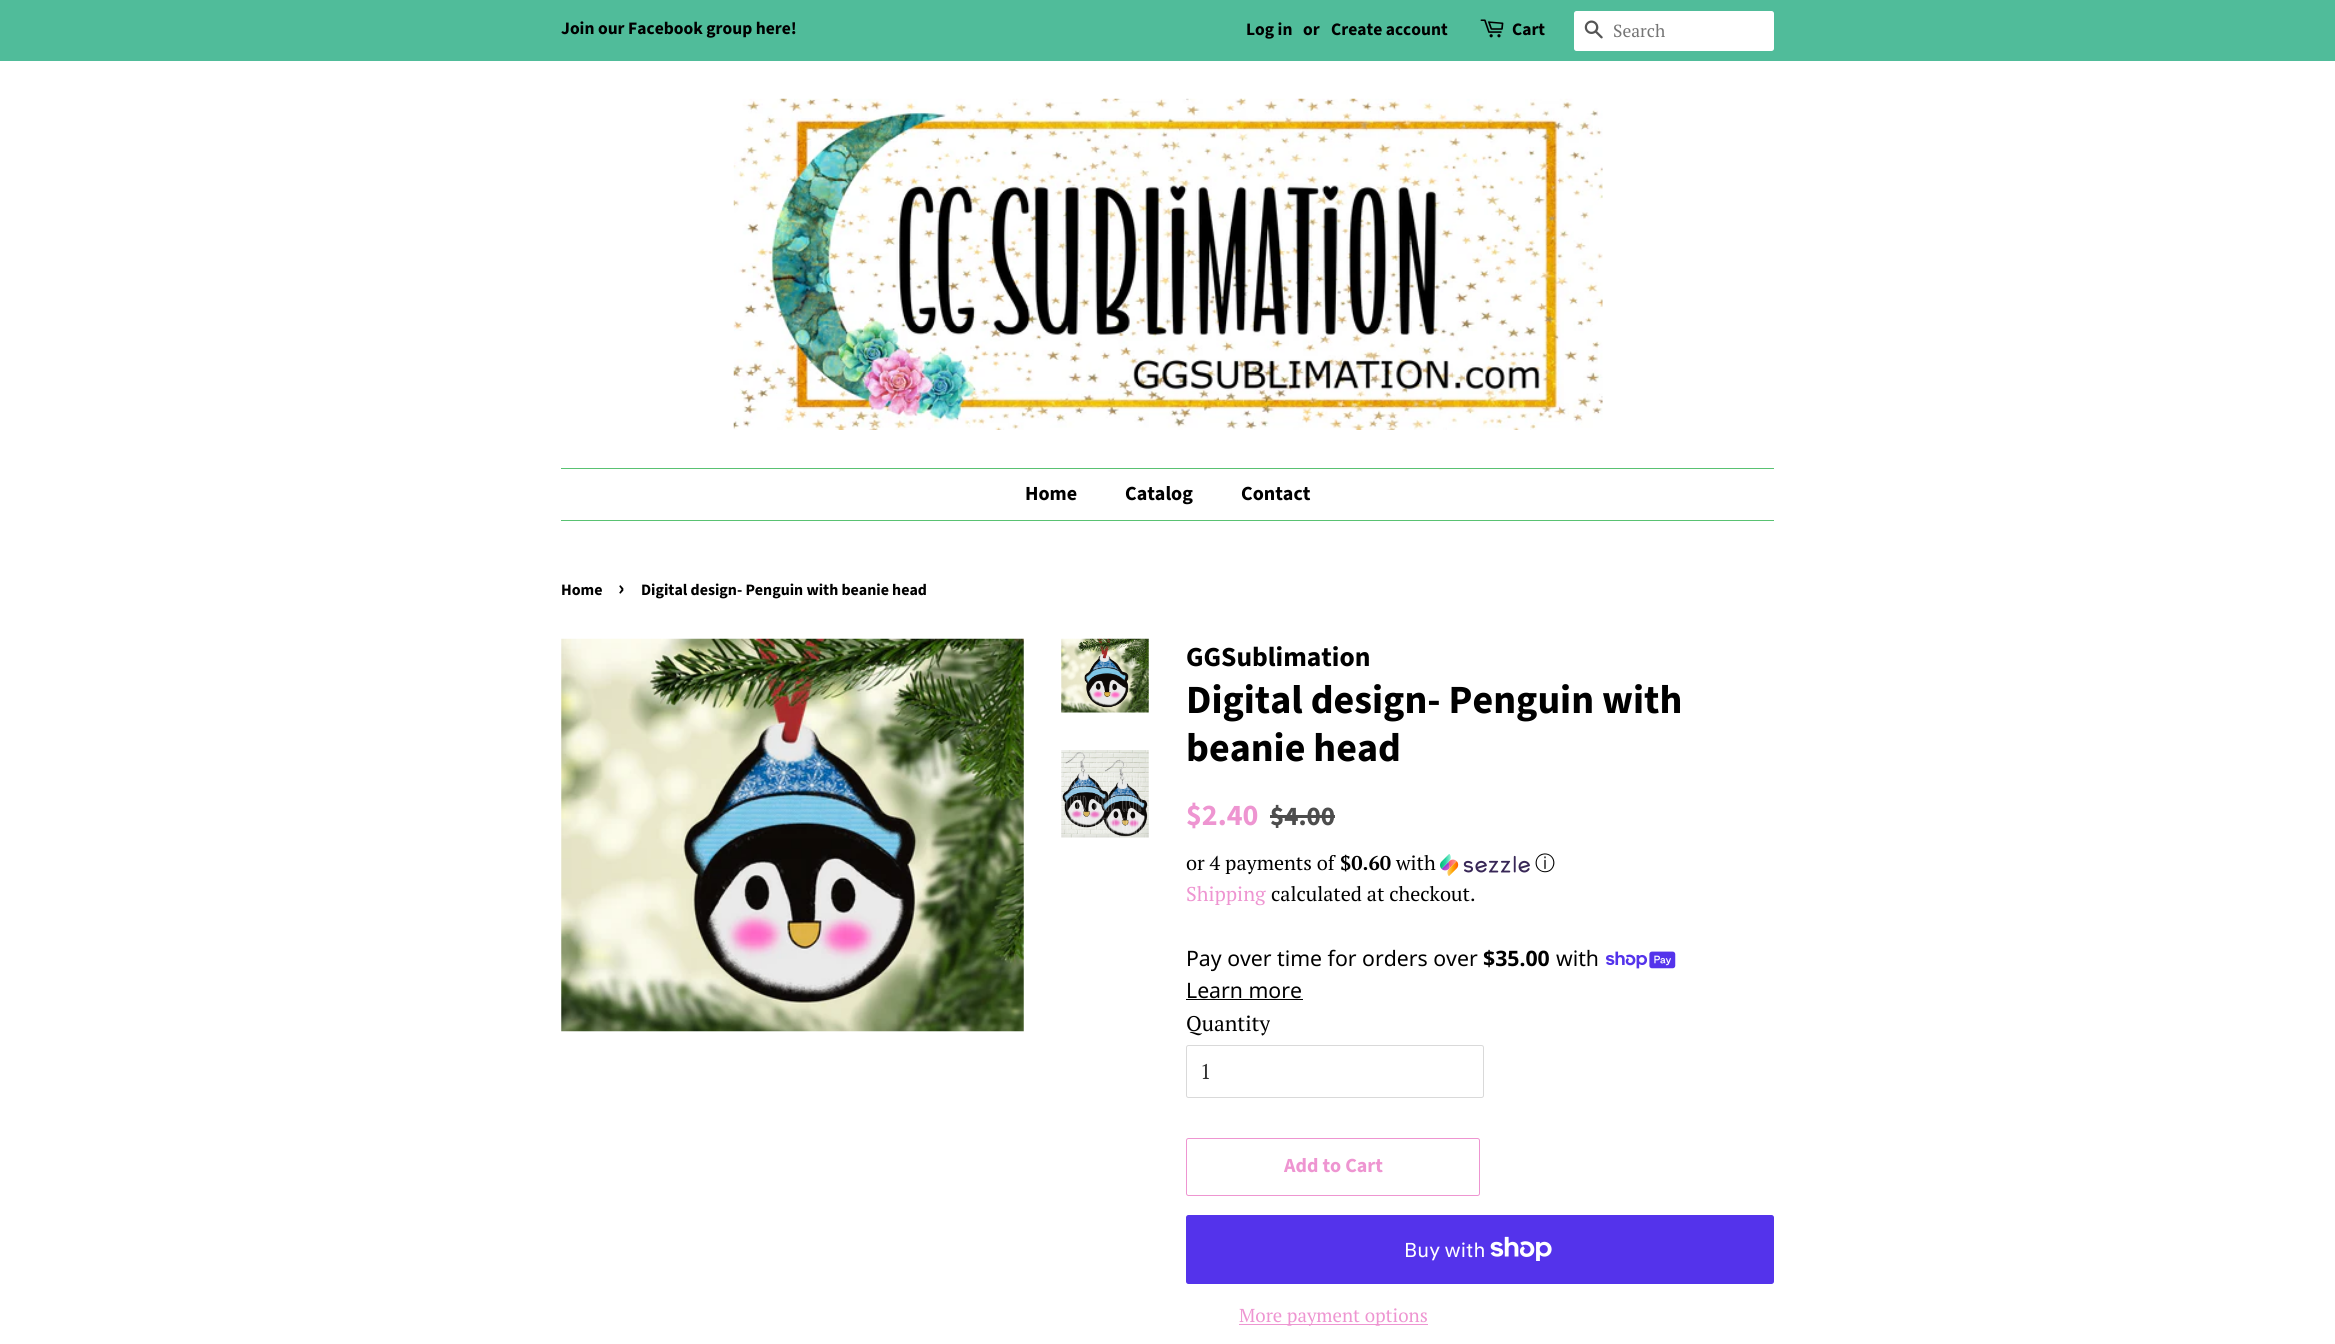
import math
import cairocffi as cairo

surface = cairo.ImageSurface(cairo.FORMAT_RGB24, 2335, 1344)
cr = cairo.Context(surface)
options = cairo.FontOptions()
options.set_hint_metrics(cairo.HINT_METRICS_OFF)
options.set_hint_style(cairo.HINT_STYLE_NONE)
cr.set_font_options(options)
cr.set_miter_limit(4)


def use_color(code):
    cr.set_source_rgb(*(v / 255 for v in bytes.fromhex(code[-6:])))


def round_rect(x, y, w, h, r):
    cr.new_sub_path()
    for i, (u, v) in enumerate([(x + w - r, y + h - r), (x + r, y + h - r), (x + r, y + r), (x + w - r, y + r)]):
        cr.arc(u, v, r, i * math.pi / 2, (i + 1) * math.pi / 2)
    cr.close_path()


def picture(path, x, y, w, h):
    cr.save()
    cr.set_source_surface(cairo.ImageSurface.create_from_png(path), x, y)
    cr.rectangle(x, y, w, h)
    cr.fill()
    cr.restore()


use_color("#ffffff")
cr.paint()
use_color("#50bc9a")
cr.rectangle(0, 0, 2335, 61)
cr.fill()
cr.select_font_face("Source Sans Pro", cairo.FONT_SLANT_NORMAL, cairo.FONT_WEIGHT_BOLD)
cr.set_font_size(17.5)
use_color("#000000")
cr.move_to(561, 34)
cr.show_text("Join our Facebook group here!")
cr.move_to(1246, 35)
cr.show_text("Log in")
cr.move_to(1303, 35)
cr.show_text("or")
cr.move_to(1331, 35)
cr.show_text("Create account")
picture("img1.png", 1480, 19, 24, 19)
cr.move_to(1512, 35)
cr.show_text("Cart")
use_color("#ffffff")
round_rect(1574, 11, 200, 40, 2.5)
cr.fill()
picture("img2.png", 1584, 20, 19, 19)
cr.select_font_face("PT Serif")
use_color("#757575")
cr.move_to(1613, 37)
cr.show_text("Search")
picture("img3.png", 733, 98, 870, 332)
use_color("#59c272")
cr.rectangle(561, 468, 1213, 1)
cr.fill()
cr.rectangle(561, 520, 1213, 1)
cr.fill()
cr.select_font_face("Source Sans Pro", cairo.FONT_SLANT_NORMAL, cairo.FONT_WEIGHT_BOLD)
cr.set_font_size(20)
use_color("#000000")
cr.move_to(1025, 500)
cr.show_text("Home")
cr.move_to(1125, 500)
cr.show_text("Catalog")
cr.move_to(1241, 500)
cr.show_text("Contact")
cr.set_font_size(15.9)
cr.move_to(561, 595)
cr.show_text("Home")
cr.set_font_size(22)
cr.move_to(618, 595)
cr.show_text("›")
cr.set_font_size(15.9)
cr.move_to(641, 595)
cr.show_text("Digital design- Penguin with beanie head")
picture("img4.png", 561, 638, 463, 394)
picture("img5.png", 1061, 638, 88, 75)
picture("img6.png", 1061, 750, 88, 88)
cr.set_font_size(27.5)
cr.move_to(1186, 666)
cr.show_text("GGSublimation")
cr.set_font_size(40)
cr.move_to(1186, 713)
cr.show_text("Digital design- Penguin with")
cr.move_to(1186, 761)
cr.show_text("beanie head")
cr.set_font_size(30)
use_color("#ee95d1")
cr.move_to(1186, 825)
cr.show_text("$2.40")
cr.set_font_size(27)
use_color("#4d4d4d")
cr.move_to(1270, 825)
cr.show_text("$4.00")
cr.rectangle(1270, 815, 65, 3)
cr.fill()
cr.select_font_face("PT Serif")
cr.set_font_size(20)
use_color("#000000")
cr.move_to(1186, 870)
cr.show_text("or 4 payments of")
cr.select_font_face("PT Serif", cairo.FONT_SLANT_NORMAL, cairo.FONT_WEIGHT_BOLD)
cr.move_to(1340, 870)
cr.show_text("$0.60")
cr.select_font_face("PT Serif")
cr.move_to(1396, 870)
cr.show_text("with")
picture("img7.png", 1440, 854, 90, 22)
cr.select_font_face("WenQuanYi Zen Hei Medium")
cr.move_to(1535, 870)
cr.show_text("ⓘ")
cr.select_font_face("PT Serif")
use_color("#ee95d1")
cr.move_to(1186, 901)
cr.show_text("Shipping")
use_color("#000000")
cr.move_to(1271, 901)
cr.show_text("calculated at checkout.")
cr.select_font_face("Noto Sans")
cr.set_font_size(21.25)
cr.move_to(1186, 966)
cr.show_text("Pay over time for orders over")
cr.select_font_face("Noto Sans", cairo.FONT_SLANT_NORMAL, cairo.FONT_WEIGHT_BOLD)
cr.move_to(1483, 966)
cr.show_text("$35.00")
cr.select_font_face("Noto Sans")
cr.move_to(1556, 966)
cr.show_text("with")
picture("img8.png", 1606, 951, 70, 18)
cr.move_to(1186, 998)
cr.show_text("Learn more")
cr.rectangle(1186, 999, 117, 1)
cr.fill()
cr.select_font_face("PT Serif")
cr.move_to(1186, 1031)
cr.show_text("Quantity")
round_rect(1186.5, 1045.5, 297, 52, 2)
use_color("#d9d9d9")
cr.set_line_width(1)
cr.stroke()
use_color("#333333")
cr.move_to(1200, 1079)
cr.show_text("1")
round_rect(1186.5, 1138.5, 293, 57, 2)
use_color("#ee95d1")
cr.stroke()
cr.select_font_face("Source Sans Pro", cairo.FONT_SLANT_NORMAL, cairo.FONT_WEIGHT_BOLD)
cr.set_font_size(20)
cr.move_to(1284, 1172)
cr.show_text("Add to Cart")
use_color("#5433eb")
round_rect(1186, 1215, 588, 69, 2.5)
cr.fill()
cr.select_font_face("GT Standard")
use_color("#ffffff")
cr.move_to(1404, 1257)
cr.show_text("Buy with")
picture("img9.png", 1490, 1236, 62, 25)
use_color("#ee95d1")
cr.rectangle(1239, 1324, 189, 1)
cr.fill()
cr.select_font_face("PT Serif")
cr.set_font_size(18.75)
cr.move_to(1239, 1322)
cr.show_text("More payment options")
surface.write_to_png("result.png")
